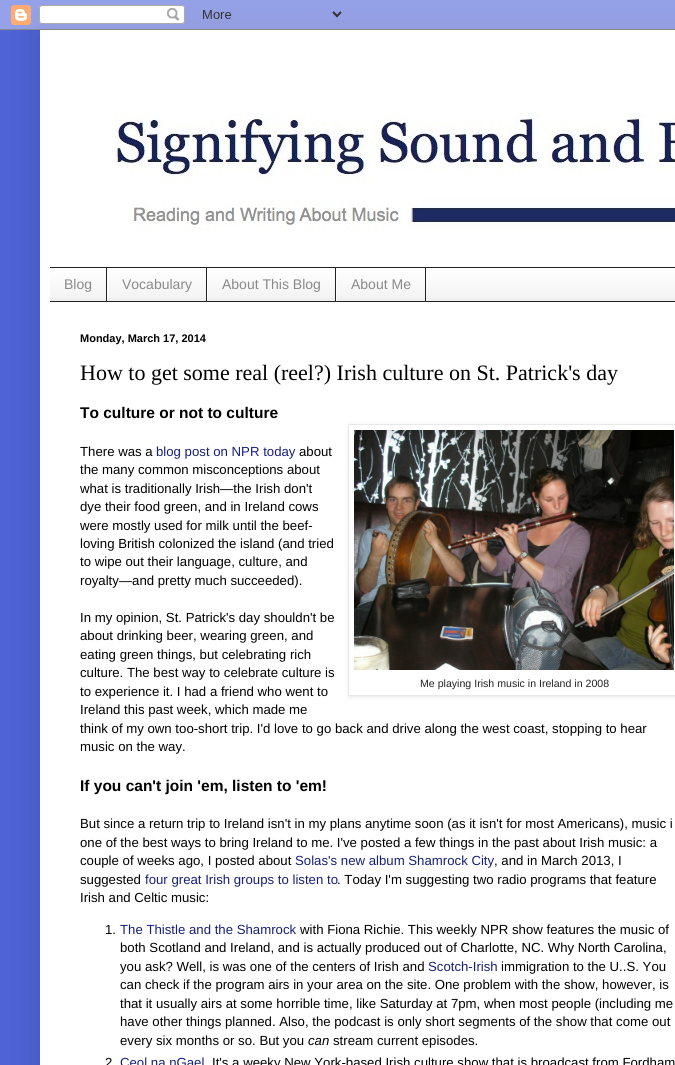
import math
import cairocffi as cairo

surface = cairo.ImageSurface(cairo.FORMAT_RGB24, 675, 1065)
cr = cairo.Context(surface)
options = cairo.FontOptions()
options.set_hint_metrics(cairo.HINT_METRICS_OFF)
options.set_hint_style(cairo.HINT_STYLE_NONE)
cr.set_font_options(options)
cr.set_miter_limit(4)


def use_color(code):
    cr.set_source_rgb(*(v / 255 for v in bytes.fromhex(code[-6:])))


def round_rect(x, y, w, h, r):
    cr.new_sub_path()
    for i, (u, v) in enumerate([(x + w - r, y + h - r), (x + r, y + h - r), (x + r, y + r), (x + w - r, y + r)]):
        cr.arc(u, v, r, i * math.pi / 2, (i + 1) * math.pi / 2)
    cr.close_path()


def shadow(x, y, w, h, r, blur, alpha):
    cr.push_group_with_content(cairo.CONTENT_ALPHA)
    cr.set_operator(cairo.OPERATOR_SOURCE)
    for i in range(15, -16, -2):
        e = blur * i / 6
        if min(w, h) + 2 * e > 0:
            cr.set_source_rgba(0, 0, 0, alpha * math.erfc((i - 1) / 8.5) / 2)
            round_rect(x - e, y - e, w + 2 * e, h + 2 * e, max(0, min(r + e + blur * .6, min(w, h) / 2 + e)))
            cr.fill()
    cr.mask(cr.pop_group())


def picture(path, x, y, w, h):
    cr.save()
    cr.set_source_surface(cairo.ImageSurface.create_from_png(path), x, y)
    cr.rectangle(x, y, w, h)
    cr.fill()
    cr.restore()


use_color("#4f63d8")
cr.paint()
use_color("#000000")
shadow(40, 30, 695, 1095, 0, 20, 0.15)
picture("img1.png", 0, 0, 675, 30)
use_color("#ffffff")
cr.rectangle(40, 30, 635, 1035)
cr.fill()
picture("img2.png", 114, 113, 561, 118)
use_color("#efefef")
cr.rectangle(50, 269, 625, 32)
cr.fill()
picture("img3.png", 50, 268, 625, 30)
use_color("#222222")
cr.rectangle(50, 267, 625, 1)
cr.fill()
cr.rectangle(50, 301, 625, 1)
cr.fill()
cr.rectangle(106, 268, 1, 33)
cr.fill()
cr.select_font_face("Liberation Sans")
cr.set_font_size(14)
use_color("#898989")
cr.move_to(64, 289)
cr.show_text("Blog")
use_color("#222222")
cr.rectangle(206, 268, 1, 33)
cr.fill()
use_color("#ffffff")
cr.rectangle(107, 268, 1, 33)
cr.fill()
use_color("#898989")
cr.move_to(122, 289)
cr.show_text("Vocabulary")
use_color("#222222")
cr.rectangle(335, 268, 1, 33)
cr.fill()
use_color("#ffffff")
cr.rectangle(207, 268, 1, 33)
cr.fill()
use_color("#898989")
cr.move_to(222, 289)
cr.show_text("About This Blog")
use_color("#222222")
cr.rectangle(425, 268, 1, 33)
cr.fill()
use_color("#ffffff")
cr.rectangle(336, 268, 1, 33)
cr.fill()
use_color("#898989")
cr.move_to(351, 289)
cr.show_text("About Me")
cr.select_font_face("Liberation Sans", cairo.FONT_SLANT_NORMAL, cairo.FONT_WEIGHT_BOLD)
cr.set_font_size(11)
use_color("#000000")
cr.move_to(80, 342)
cr.show_text("Monday, March 17, 2014")
cr.select_font_face("Liberation Serif")
cr.set_font_size(22)
cr.move_to(80, 380)
cr.show_text("How to get some real (reel?) Irish culture on St. Patrick's day")
cr.select_font_face("Liberation Sans", cairo.FONT_SLANT_NORMAL, cairo.FONT_WEIGHT_BOLD)
cr.set_font_size(15.5)
cr.move_to(80, 418)
cr.show_text("To culture or not to culture")
cr.select_font_face("Liberation Sans")
cr.set_font_size(13.2)
cr.move_to(80, 456)
cr.show_text("There was a")
use_color("#161f7a")
cr.move_to(156, 456)
cr.show_text("blog post on NPR today")
use_color("#000000")
cr.move_to(299, 456)
cr.show_text("about")
cr.move_to(80, 474)
cr.show_text("the many common misconceptions about")
cr.move_to(80, 493)
cr.show_text("what is traditionally Irish—the Irish don't")
cr.move_to(80, 511)
cr.show_text("dye their food green, and in Ireland cows")
cr.move_to(80, 530)
cr.show_text("were mostly used for milk until the beef-")
cr.move_to(80, 548)
cr.show_text("loving British colonized the island (and tried")
cr.move_to(80, 566)
cr.show_text("to wipe out their language, culture, and")
cr.move_to(80, 585)
cr.show_text("royalty—and pretty much succeeded).")
cr.move_to(80, 622)
cr.show_text("In my opinion, St. Patrick's day shouldn't be")
cr.move_to(80, 640)
cr.show_text("about drinking beer, wearing green, and")
cr.move_to(80, 659)
cr.show_text("eating green things, but celebrating rich")
cr.move_to(80, 677)
cr.show_text("culture. The best way to celebrate culture is")
cr.save()
cr.set_fill_rule(cairo.FILL_RULE_EVEN_ODD)
cr.new_path()
cr.move_to(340, 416)
cr.line_to(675, 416)
cr.line_to(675, 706)
cr.line_to(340, 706)
cr.close_path()
cr.move_to(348, 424)
cr.line_to(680, 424)
cr.line_to(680, 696)
cr.line_to(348, 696)
cr.close_path()
cr.clip()
use_color("#000000")
shadow(349, 425, 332, 272, 0, 2.5, 0.1)
cr.restore()
cr.rectangle(348.5, 424.5, 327, 271)
use_color("#e8e8e8")
cr.set_line_width(1)
cr.stroke()
picture("img4.png", 354, 430, 320, 240)
cr.set_font_size(10.6)
use_color("#222222")
cr.move_to(420, 687)
cr.show_text("Me playing Irish music in Ireland in 2008")
cr.set_font_size(13.2)
use_color("#000000")
cr.move_to(80, 696)
cr.show_text("to experience it. I had a friend who went to")
cr.move_to(80, 714)
cr.show_text("Ireland this past week, which made me")
cr.move_to(80, 733)
cr.show_text("think of my own too-short trip. I'd love to go back and drive along the west coast, stopping to hear")
cr.move_to(80, 751)
cr.show_text("music on the way.")
cr.select_font_face("Liberation Sans", cairo.FONT_SLANT_NORMAL, cairo.FONT_WEIGHT_BOLD)
cr.set_font_size(15.5)
cr.move_to(80, 791)
cr.show_text("If you can't join 'em, listen to 'em!")
cr.select_font_face("Liberation Sans")
cr.set_font_size(13.2)
cr.move_to(80, 828)
cr.show_text("But since a return trip to Ireland isn't in my plans anytime soon (as it isn't for most Americans), music i")
cr.move_to(80, 847)
cr.show_text("one of the best ways to bring Ireland to me. I've posted a few things in the past about Irish music: a")
cr.move_to(80, 865)
cr.show_text("couple of weeks ago, I posted about")
use_color("#161f7a")
cr.move_to(295, 865)
cr.show_text("Solas's new album Shamrock City")
use_color("#000000")
cr.move_to(494, 865)
cr.show_text(", and in March 2013, I")
cr.move_to(80, 884)
cr.show_text("suggested")
use_color("#161f7a")
cr.move_to(145, 884)
cr.show_text("four great Irish groups to listen to")
use_color("#000000")
cr.move_to(337, 884)
cr.show_text(". Today I'm suggesting two radio programs that feature")
cr.move_to(80, 902)
cr.show_text("Irish and Celtic music:")
cr.move_to(105, 934)
cr.show_text("1.")
use_color("#161f7a")
cr.move_to(120, 934)
cr.show_text("The Thistle and the Shamrock")
use_color("#000000")
cr.move_to(300, 934)
cr.show_text("with Fiona Richie. This weekly NPR show features the music of")
cr.move_to(120, 952)
cr.show_text("both Scotland and Ireland, and is actually produced out of Charlotte, NC. Why North Carolina,")
cr.move_to(120, 971)
cr.show_text("you ask? Well, is was one of the centers of Irish and")
use_color("#161f7a")
cr.move_to(428, 971)
cr.show_text("Scotch-Irish")
use_color("#000000")
cr.move_to(501, 971)
cr.show_text("immigration to the U..S. You")
cr.move_to(120, 989)
cr.show_text("can check if the program airs in your area on the site. One problem with the show, however, is")
cr.move_to(120, 1008)
cr.show_text("that it usually airs at some horrible time, like Saturday at 7pm, when most people (including me")
cr.move_to(120, 1026)
cr.show_text("have other things planned. Also, the podcast is only short segments of the show that come out")
cr.move_to(120, 1045)
cr.show_text("every six months or so. But you")
cr.select_font_face("Liberation Sans", cairo.FONT_SLANT_ITALIC)
cr.move_to(308, 1045)
cr.show_text("can")
cr.select_font_face("Liberation Sans")
cr.move_to(333, 1045)
cr.show_text("stream current episodes.")
cr.move_to(105, 1067)
cr.show_text("2")
use_color("#161f7a")
cr.move_to(120, 1067)
cr.show_text("Ceol na nGael")
use_color("#000000")
cr.move_to(212, 1067)
cr.show_text("It's a weeky New York-based Irish culture show that is broadcast from Fordham")
surface.write_to_png("result.png")
